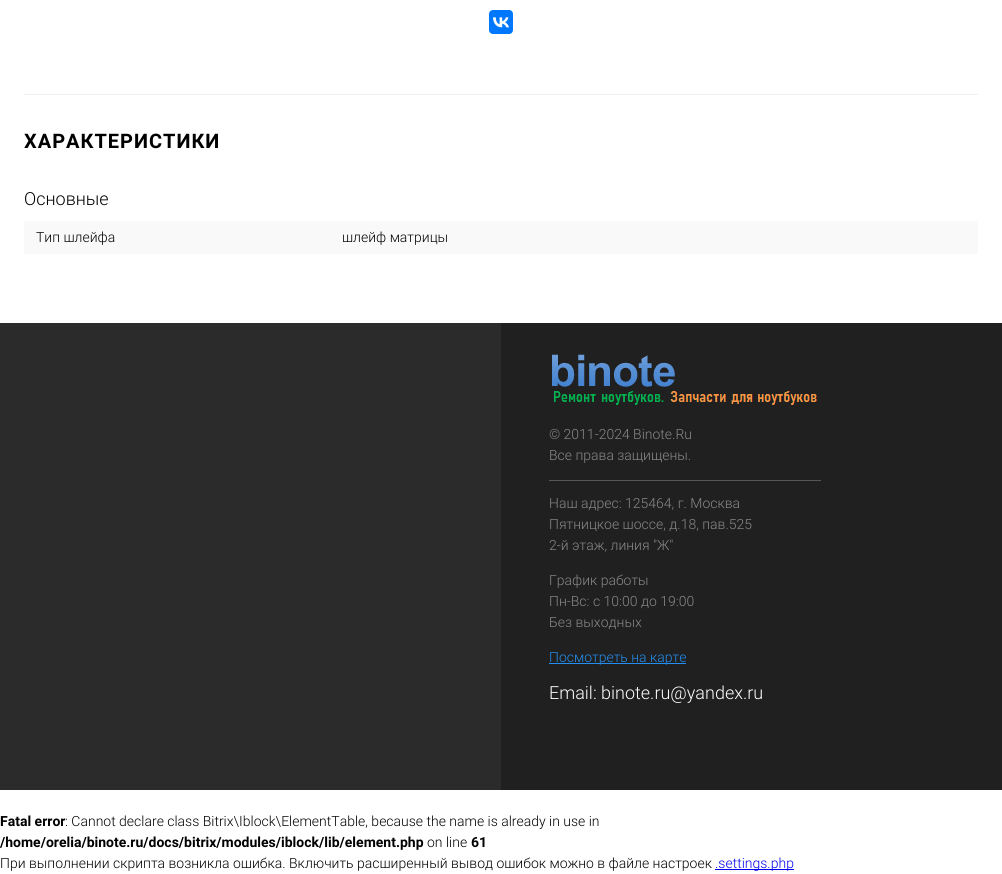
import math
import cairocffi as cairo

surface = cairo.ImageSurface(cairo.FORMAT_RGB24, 1002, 874)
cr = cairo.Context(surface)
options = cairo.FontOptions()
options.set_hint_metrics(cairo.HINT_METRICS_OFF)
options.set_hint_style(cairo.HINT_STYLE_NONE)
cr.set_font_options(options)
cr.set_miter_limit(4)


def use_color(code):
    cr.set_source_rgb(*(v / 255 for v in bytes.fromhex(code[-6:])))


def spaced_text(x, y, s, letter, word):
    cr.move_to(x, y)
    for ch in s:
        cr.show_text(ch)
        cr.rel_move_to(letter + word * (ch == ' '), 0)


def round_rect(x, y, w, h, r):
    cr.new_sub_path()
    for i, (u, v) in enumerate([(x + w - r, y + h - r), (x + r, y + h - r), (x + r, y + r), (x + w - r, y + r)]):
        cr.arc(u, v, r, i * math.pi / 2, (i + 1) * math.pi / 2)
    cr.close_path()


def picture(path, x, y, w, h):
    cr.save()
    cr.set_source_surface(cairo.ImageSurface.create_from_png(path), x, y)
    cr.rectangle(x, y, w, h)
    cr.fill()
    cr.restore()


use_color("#ffffff")
cr.paint()
use_color("#0077ff")
round_rect(489, 10, 24, 24, 4)
cr.fill()
picture("img1.png", 493, 17, 16, 11)
use_color("#efefef")
cr.rectangle(24, 94, 954, 1)
cr.fill()
cr.select_font_face("Roboto", cairo.FONT_SLANT_NORMAL, cairo.FONT_WEIGHT_BOLD)
cr.set_font_size(20)
use_color("#000000")
spaced_text(24, 148, "ХАРАКТЕРИСТИКИ", 1, 0)
cr.select_font_face("Roboto Light")
cr.set_font_size(18)
cr.move_to(24, 205)
cr.show_text("Основные")
use_color("#f9f9f9")
cr.rectangle(24, 221, 954, 33)
cr.fill()
cr.set_font_size(14)
use_color("#000000")
cr.move_to(36, 242)
cr.show_text("Тип шлейфа")
cr.move_to(342, 242)
cr.show_text("шлейф матрицы")
use_color("#2b2b2b")
cr.rectangle(0, 323, 501, 467)
cr.fill()
use_color("#202020")
cr.rectangle(501, 323, 501, 467)
cr.fill()
picture("img2.png", 552, 354, 265, 51)
use_color("#888888")
cr.move_to(549, 439)
cr.show_text("© 2011-2024 Binote.Ru")
cr.move_to(549, 460)
cr.show_text("Все права защищены.")
use_color("#575757")
cr.rectangle(549, 480, 272, 1)
cr.fill()
use_color("#888888")
cr.move_to(549, 508)
cr.show_text("Наш адрес: 125464, г. Москва")
cr.move_to(549, 529)
cr.show_text("Пятницкое шоссе, д.18, пав.525")
cr.move_to(549, 550)
cr.show_text("2-й этаж, линия \"Ж\"")
cr.move_to(549, 585)
cr.show_text("График работы")
cr.move_to(549, 606)
cr.show_text("Пн-Вс: с 10:00 до 19:00")
cr.move_to(549, 627)
cr.show_text("Без выходных")
use_color("#238ff2")
cr.rectangle(549, 663, 137, 1)
cr.fill()
cr.move_to(549, 662)
cr.show_text("Посмотреть на карте")
cr.set_font_size(18)
use_color("#ffffff")
cr.move_to(549, 699)
cr.show_text("Email: binote.ru@yandex.ru")
cr.select_font_face("Roboto", cairo.FONT_SLANT_NORMAL, cairo.FONT_WEIGHT_BOLD)
cr.set_font_size(14)
use_color("#000000")
cr.move_to(0, 826)
cr.show_text("Fatal error")
cr.select_font_face("Roboto Light")
cr.move_to(65, 826)
cr.show_text(": Cannot declare class Bitrix\\Iblock\\ElementTable, because the name is already in use in")
cr.select_font_face("Roboto", cairo.FONT_SLANT_NORMAL, cairo.FONT_WEIGHT_BOLD)
cr.move_to(0, 847)
cr.show_text("/home/orelia/binote.ru/docs/bitrix/modules/iblock/lib/element.php")
cr.select_font_face("Roboto Light")
cr.move_to(427, 847)
cr.show_text("on line")
cr.select_font_face("Roboto", cairo.FONT_SLANT_NORMAL, cairo.FONT_WEIGHT_BOLD)
cr.move_to(471, 847)
cr.show_text("61")
cr.select_font_face("Roboto Light")
cr.move_to(0, 868)
cr.show_text("При выполнении скрипта возникла ошибка. Включить расширенный вывод ошибок можно в файле настроек")
use_color("#0000ee")
cr.rectangle(715, 869, 79, 1)
cr.fill()
cr.move_to(715, 868)
cr.show_text(".settings.php")
surface.write_to_png("result.png")
